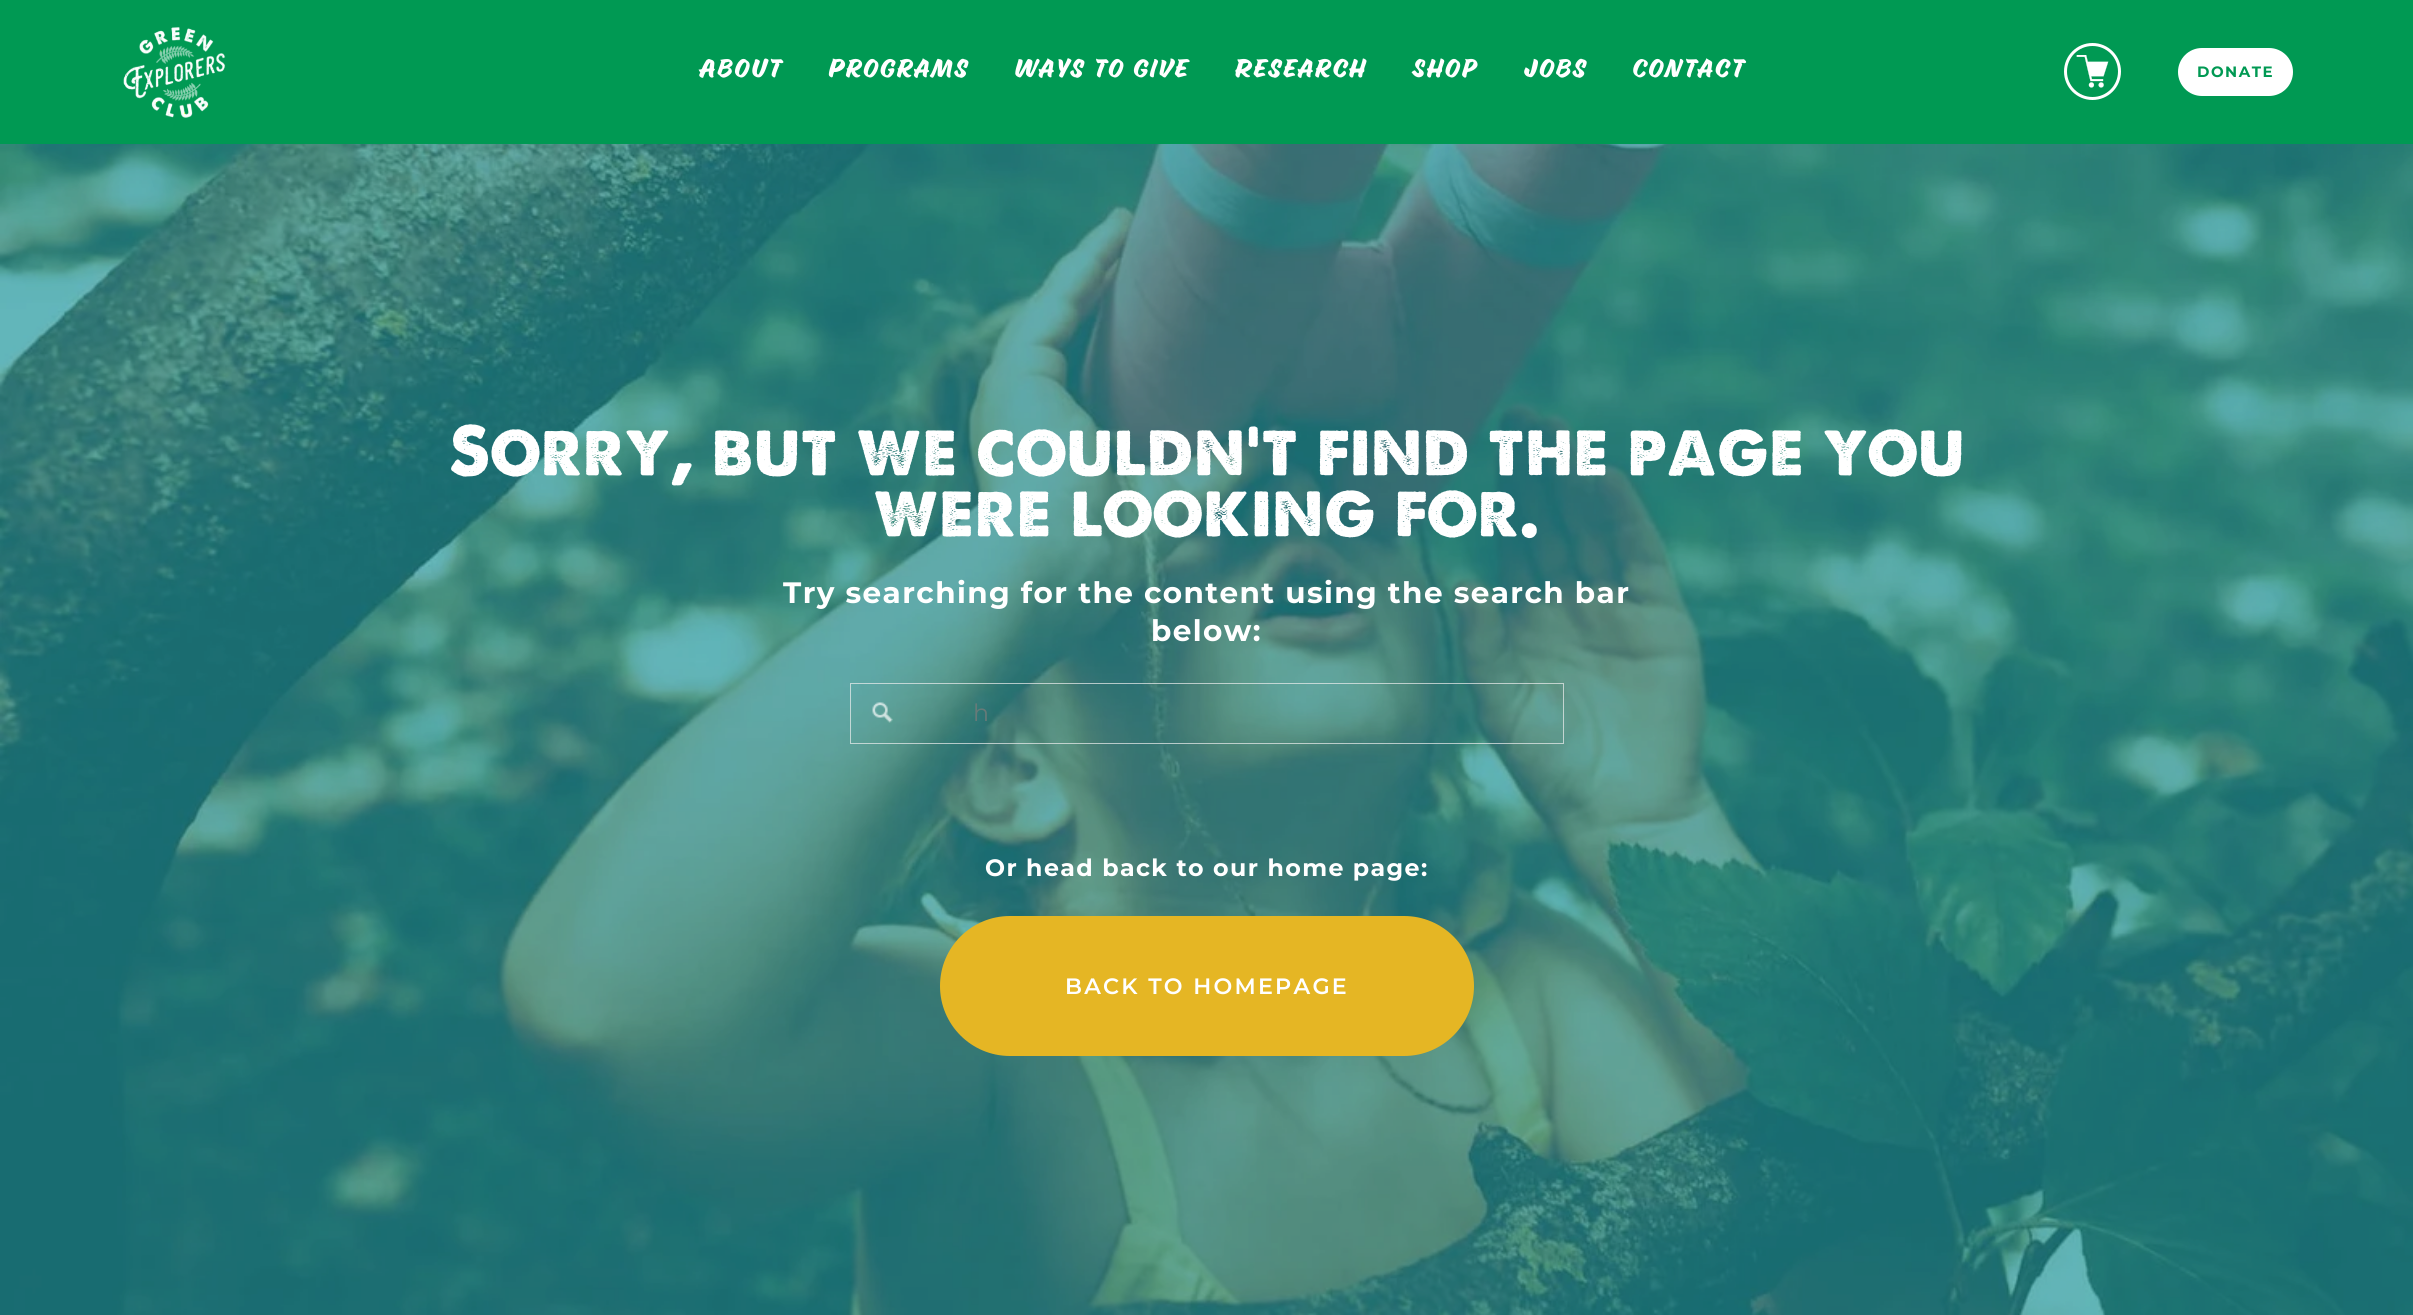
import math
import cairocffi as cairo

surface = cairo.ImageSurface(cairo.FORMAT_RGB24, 2413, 1315)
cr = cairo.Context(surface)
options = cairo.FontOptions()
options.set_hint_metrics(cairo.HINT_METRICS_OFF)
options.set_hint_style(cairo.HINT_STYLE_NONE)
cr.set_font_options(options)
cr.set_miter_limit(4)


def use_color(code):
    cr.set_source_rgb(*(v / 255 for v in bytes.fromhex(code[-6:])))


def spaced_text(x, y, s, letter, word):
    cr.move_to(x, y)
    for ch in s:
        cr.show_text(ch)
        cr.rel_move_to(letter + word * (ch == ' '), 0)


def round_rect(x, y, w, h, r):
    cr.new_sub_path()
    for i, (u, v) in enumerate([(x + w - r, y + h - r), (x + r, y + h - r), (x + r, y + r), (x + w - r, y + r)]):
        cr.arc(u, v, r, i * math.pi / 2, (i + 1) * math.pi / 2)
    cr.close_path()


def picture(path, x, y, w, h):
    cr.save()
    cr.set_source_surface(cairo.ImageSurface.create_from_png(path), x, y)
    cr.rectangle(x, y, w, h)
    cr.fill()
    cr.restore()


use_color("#ffffff")
cr.paint()
use_color("#009953")
cr.rectangle(0, 0, 2413, 144)
cr.fill()
picture("img1.png", 123, 27, 103, 91)
cr.select_font_face("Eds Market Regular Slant")
cr.set_font_size(23.7)
use_color("#ffffff")
spaced_text(700, 77, "About", 1.7, 0)
spaced_text(829, 77, "Programs", 1.7, 0)
spaced_text(1015, 77, "Ways to Give", 1.7, 0)
spaced_text(1235, 77, "Research", 1.7, 0)
spaced_text(1413, 77, "Shop", 1.7, 0)
spaced_text(1525, 77, "Jobs", 1.7, 0)
spaced_text(1633, 77, "Contact", 1.7, 0)
cr.new_path()
cr.arc(2092.5, 71.5, 27, 0, 2 * math.pi)
cr.set_line_width(3)
cr.stroke()
picture("img2.png", 2076, 55, 33, 33)
round_rect(2178, 48, 115, 48, 24)
cr.fill()
cr.select_font_face("Montserrat", cairo.FONT_SLANT_NORMAL, cairo.FONT_WEIGHT_BOLD)
cr.set_font_size(15)
use_color("#009953")
spaced_text(2197, 77, "DONATE", 1.5, 0)
picture("img3.png", 0, 144, 2413, 1171)
cr.select_font_face("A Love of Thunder")
cr.set_font_size(67.1)
use_color("#ffffff")
spaced_text(449, 475, "Sorry, but we couldn’t find the page you", 0.75, 0)
spaced_text(873, 536, "were looking for.", 0.75, 0)
cr.select_font_face("Montserrat", cairo.FONT_SLANT_NORMAL, cairo.FONT_WEIGHT_BOLD)
cr.set_font_size(29.5)
spaced_text(783, 603, "Try searching for the content using the search bar", 1.4, 0)
spaced_text(1151, 641, "below:", 1.4, 0)
picture("img4.png", 872, 702, 21, 21)
cr.rectangle(850.5, 683.5, 713, 60)
cr.set_source_rgba(0.933, 0.933, 0.933, 0.7)
cr.set_line_width(1)
cr.stroke()
cr.select_font_face("Montserrat")
cr.set_font_size(23.7)
use_color("#677a78")
cr.move_to(973, 721)
cr.show_text("h")
cr.select_font_face("Montserrat", cairo.FONT_SLANT_NORMAL, cairo.FONT_WEIGHT_BOLD)
use_color("#ffffff")
spaced_text(985, 876, "Or head back to our home page:", 1.4, 0)
use_color("#e5b624")
round_rect(940, 916, 534, 140, 70)
cr.fill()
cr.select_font_face("Montserrat SemiBold")
cr.set_font_size(22.25)
use_color("#ffffff")
spaced_text(1065, 994, "BACK TO HOMEPAGE", 2.25, 0)
surface.write_to_png("result.png")
